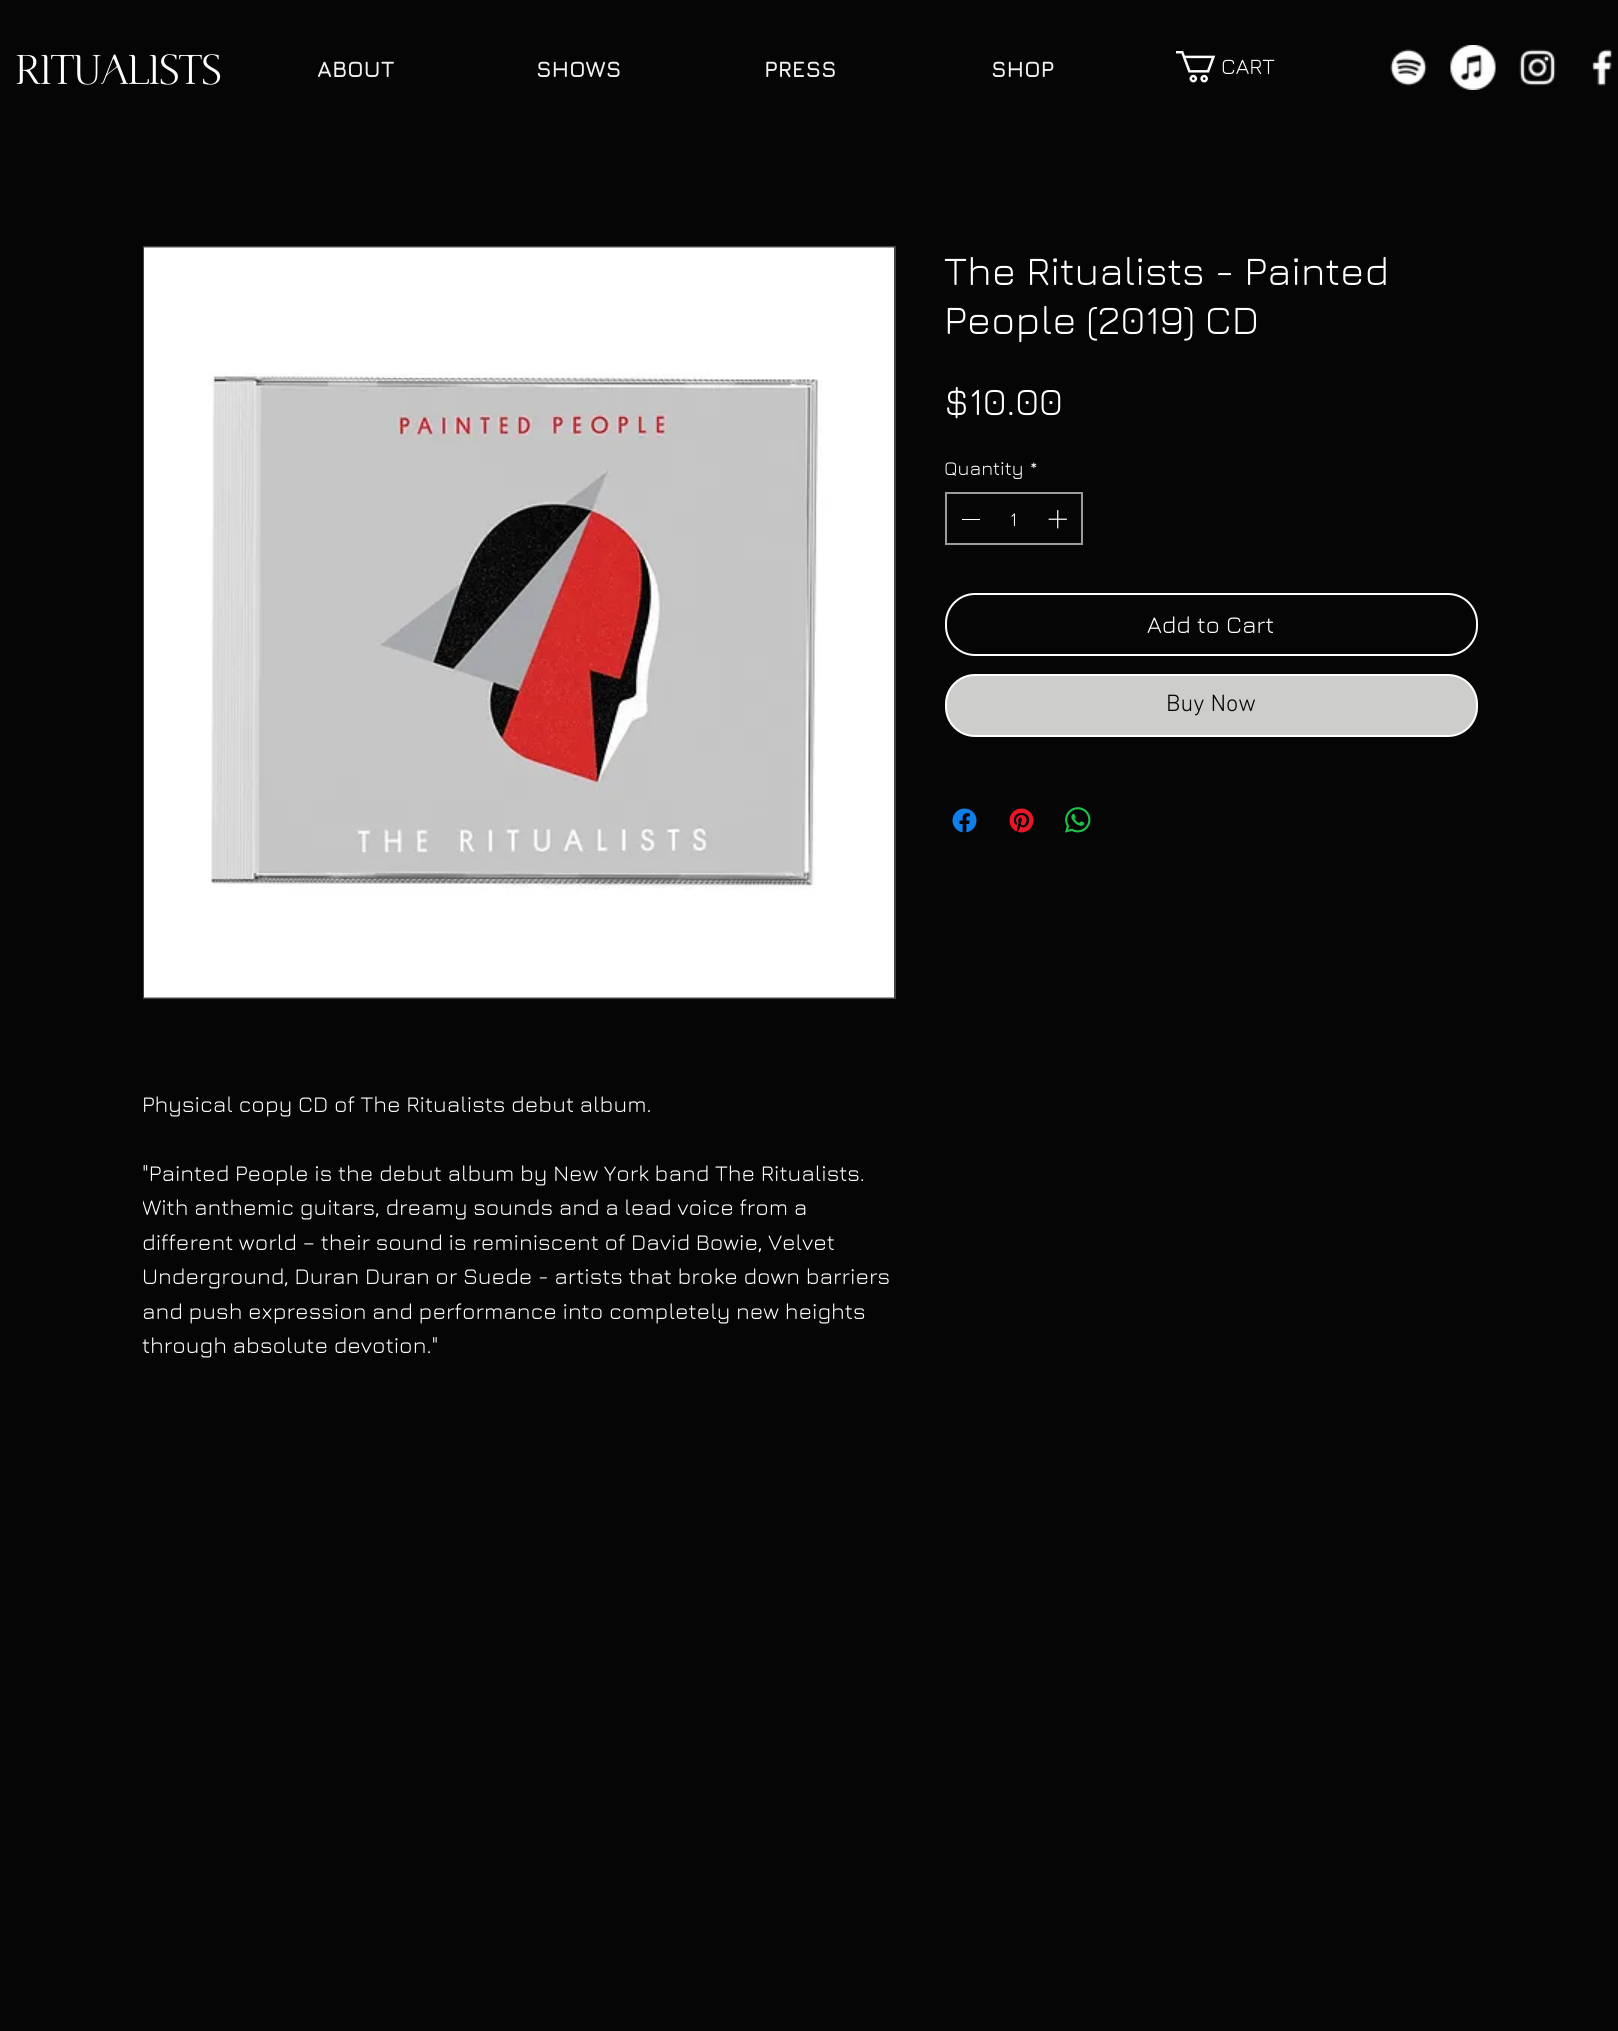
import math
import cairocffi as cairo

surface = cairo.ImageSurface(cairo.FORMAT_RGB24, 1618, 2031)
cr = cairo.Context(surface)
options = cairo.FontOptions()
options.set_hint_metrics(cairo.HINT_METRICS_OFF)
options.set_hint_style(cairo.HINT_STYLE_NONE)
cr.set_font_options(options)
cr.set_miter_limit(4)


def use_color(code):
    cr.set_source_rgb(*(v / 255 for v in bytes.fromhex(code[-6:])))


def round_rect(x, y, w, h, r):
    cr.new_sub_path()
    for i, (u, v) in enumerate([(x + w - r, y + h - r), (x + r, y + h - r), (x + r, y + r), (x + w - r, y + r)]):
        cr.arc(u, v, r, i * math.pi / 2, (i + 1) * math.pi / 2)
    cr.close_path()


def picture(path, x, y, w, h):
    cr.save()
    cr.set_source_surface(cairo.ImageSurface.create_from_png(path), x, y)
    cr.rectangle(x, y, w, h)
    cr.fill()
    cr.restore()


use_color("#050505")
cr.paint()
cr.select_font_face("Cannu")
cr.set_font_size(45)
use_color("#ffffff")
cr.move_to(16, 84)
cr.show_text("RITUALISTS")
cr.select_font_face("Jura", cairo.FONT_SLANT_NORMAL, cairo.FONT_WEIGHT_BOLD)
cr.set_font_size(22.5)
use_color("#f1f1f1")
cr.move_to(317, 77)
cr.show_text("ABOUT")
cr.move_to(536, 77)
cr.show_text("SHOWS")
cr.move_to(764, 77)
cr.show_text("PRESS")
cr.move_to(991, 77)
cr.show_text("SHOP")
picture("img1.png", 1176, 51, 40, 32)
cr.select_font_face("Jura")
cr.set_font_size(22)
use_color("#ffffff")
cr.move_to(1221, 74)
cr.show_text("CART")
picture("img2.png", 1390, 49, 37, 37)
picture("img3.png", 1450, 45, 46, 45)
picture("img4.png", 1519, 49, 37, 37)
picture("img5.png", 1592, 49, 21, 37)
cr.set_font_size(40.5)
cr.move_to(944, 285)
cr.show_text("The Ritualists - Painted")
cr.move_to(944, 334)
cr.show_text("People (2019) CD")
cr.set_font_size(39)
cr.move_to(944, 415)
cr.show_text("$10.00")
cr.set_font_size(19.5)
cr.move_to(944, 475)
cr.show_text("Quantity")
cr.move_to(1030, 475)
cr.show_text("*")
cr.rectangle(946, 493, 136, 51)
use_color("#9b9b9b")
cr.stroke()
use_color("#ffffff")
cr.rectangle(962, 519, 18, 1)
cr.fill()
cr.move_to(1010, 526)
cr.show_text("1")
picture("img6.png", 1048, 510, 19, 19)
round_rect(946, 594, 531, 61, 29)
cr.stroke()
cr.set_font_size(24)
cr.move_to(1147, 633)
cr.show_text("Add to Cart")
use_color("#cdcdcc")
round_rect(946, 675, 531, 61, 29)
cr.fill_preserve()
use_color("#ffffff")
cr.stroke()
cr.select_font_face("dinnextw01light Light")
use_color("#050505")
cr.move_to(1166, 711)
cr.show_text("Buy Now")
picture("img7.png", 952, 808, 25, 25)
picture("img8.png", 1009, 808, 25, 25)
picture("img9.png", 1065, 807, 26, 26)
cr.rectangle(144, 247, 751, 751)
use_color("#444444")
cr.stroke()
picture("img10.png", 144, 247, 750, 751)
cr.select_font_face("Jura")
cr.set_font_size(22.5)
use_color("#ffffff")
cr.move_to(142, 1112)
cr.show_text("Physical copy CD of The Ritualists debut album.")
cr.move_to(142, 1181)
cr.show_text("\"Painted People is the debut album by New York band The Ritualists.")
cr.save()
cr.rectangle(143, 1086, 750, 276)
cr.clip()
cr.move_to(142, 1215)
cr.show_text("With anthemic guitars, dreamy sounds and a lead voice from a")
cr.restore()
cr.move_to(142, 1250)
cr.show_text("different world – their sound is reminiscent of David Bowie, Velvet")
cr.move_to(142, 1284)
cr.show_text("Underground, Duran Duran or Suede - artists that broke down barriers")
cr.move_to(142, 1319)
cr.show_text("and push expression and performance into completely new heights")
cr.move_to(142, 1353)
cr.show_text("through absolute devotion.\"")
surface.write_to_png("result.png")
